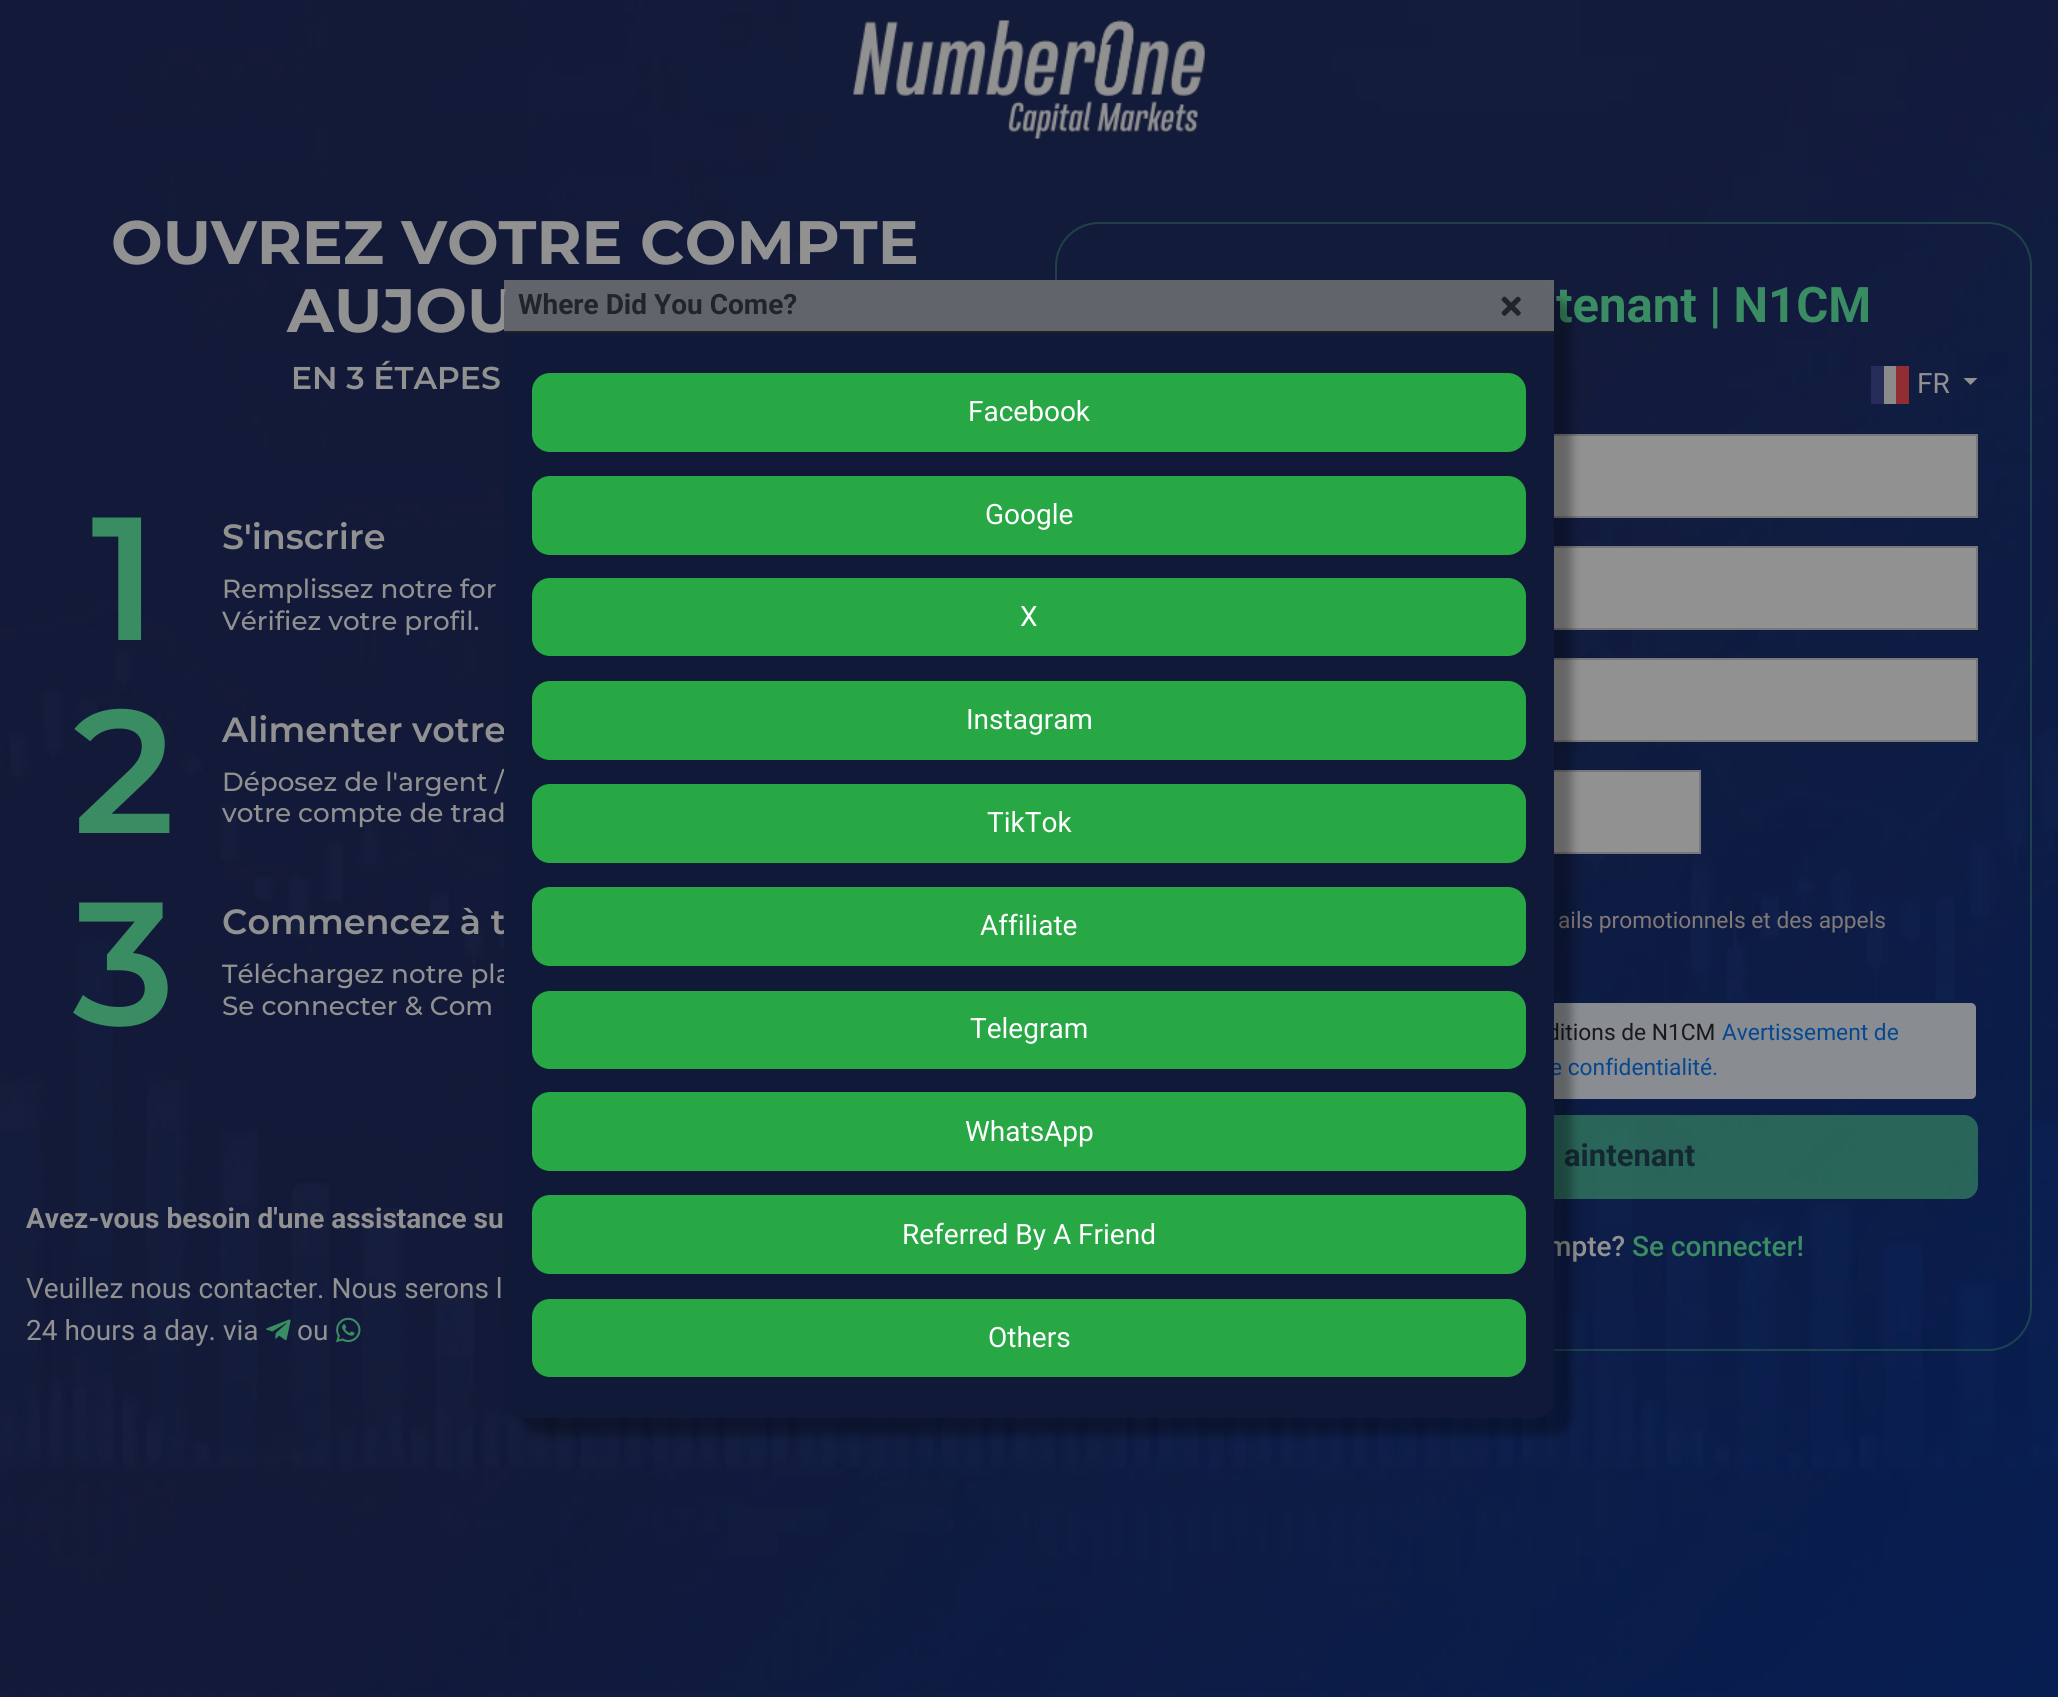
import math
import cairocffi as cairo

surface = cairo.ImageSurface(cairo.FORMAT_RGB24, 2058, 1697)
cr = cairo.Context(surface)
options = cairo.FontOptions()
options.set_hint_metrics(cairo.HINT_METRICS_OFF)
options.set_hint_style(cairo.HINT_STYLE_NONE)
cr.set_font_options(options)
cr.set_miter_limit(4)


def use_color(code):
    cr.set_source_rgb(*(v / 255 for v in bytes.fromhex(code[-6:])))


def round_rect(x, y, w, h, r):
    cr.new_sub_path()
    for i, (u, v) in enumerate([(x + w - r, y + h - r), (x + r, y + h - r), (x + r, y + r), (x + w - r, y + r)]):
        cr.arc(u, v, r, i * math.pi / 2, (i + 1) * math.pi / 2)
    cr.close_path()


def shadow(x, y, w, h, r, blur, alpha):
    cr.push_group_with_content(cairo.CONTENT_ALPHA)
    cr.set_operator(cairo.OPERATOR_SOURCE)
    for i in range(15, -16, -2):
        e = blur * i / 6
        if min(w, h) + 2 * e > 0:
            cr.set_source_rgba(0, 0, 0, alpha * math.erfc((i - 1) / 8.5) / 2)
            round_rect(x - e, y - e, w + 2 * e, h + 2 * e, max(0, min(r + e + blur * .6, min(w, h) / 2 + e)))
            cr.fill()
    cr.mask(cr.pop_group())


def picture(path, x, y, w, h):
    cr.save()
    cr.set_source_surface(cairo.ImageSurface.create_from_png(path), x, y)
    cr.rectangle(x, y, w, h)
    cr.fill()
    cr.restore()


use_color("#ffffff")
cr.paint()
picture("img1.png", 0, 0, 2058, 1697)
picture("img2.png", 853, 20, 352, 119)
cr.select_font_face("Montserrat", cairo.FONT_SLANT_NORMAL, cairo.FONT_WEIGHT_BOLD)
cr.set_font_size(61.25)
use_color("#919191")
cr.move_to(111, 264)
cr.show_text("OUVREZ VOTRE COMPTE")
cr.move_to(287, 332)
cr.show_text("AUJOU")
cr.select_font_face("Montserrat SemiBold")
cr.set_font_size(31.5)
cr.move_to(291, 389)
cr.show_text("EN 3 ÉTAPES")
cr.set_font_size(175)
use_color("#3a8c63")
cr.move_to(91, 640)
cr.show_text("1")
cr.set_font_size(35)
use_color("#919191")
cr.move_to(222, 549)
cr.show_text("S'inscrire")
cr.select_font_face("Montserrat Medium")
cr.set_font_size(26.25)
cr.move_to(222, 598)
cr.show_text("Remplissez notre for")
cr.move_to(222, 630)
cr.show_text("Vérifiez votre profil.")
cr.select_font_face("Montserrat SemiBold")
cr.set_font_size(175)
use_color("#3a8c63")
cr.move_to(73, 833)
cr.show_text("2")
cr.set_font_size(35)
use_color("#919191")
cr.move_to(222, 742)
cr.show_text("Alimenter votre")
cr.select_font_face("Montserrat Medium")
cr.set_font_size(26.25)
cr.move_to(222, 791)
cr.show_text("Déposez de l'argent /")
cr.move_to(222, 822)
cr.show_text("votre compte de trad")
cr.select_font_face("Montserrat SemiBold")
cr.set_font_size(175)
use_color("#3a8c63")
cr.move_to(73, 1025)
cr.show_text("3")
cr.set_font_size(35)
use_color("#919191")
cr.move_to(222, 934)
cr.show_text("Commencez à t")
cr.select_font_face("Montserrat Medium")
cr.set_font_size(26.25)
cr.move_to(222, 983)
cr.show_text("Téléchargez notre pla")
cr.move_to(222, 1015)
cr.show_text("Se connecter & Com")
cr.select_font_face("Roboto", cairo.FONT_SLANT_NORMAL, cairo.FONT_WEIGHT_BOLD)
cr.set_font_size(28)
cr.move_to(26, 1228)
cr.show_text("Avez-vous besoin d'une assistance su")
cr.select_font_face("Roboto")
cr.move_to(26, 1298)
cr.show_text("Veuillez nous contacter. Nous serons l")
cr.move_to(26, 1340)
cr.show_text("24 hours a day. via")
picture("img3.png", 266, 1319, 25, 21)
cr.move_to(297, 1340)
cr.show_text("ou")
picture("img4.png", 336, 1317, 25, 26)
round_rect(1056, 223, 975, 1127, 43)
cr.set_source_rgba(0.227, 0.549, 0.388, 0.34)
cr.stroke()
cr.select_font_face("Roboto", cairo.FONT_SLANT_NORMAL, cairo.FONT_WEIGHT_BOLD)
cr.set_font_size(49)
use_color("#3a8c63")
cr.move_to(1556, 322)
cr.show_text("tenant | N1CM")
use_color("#282c5a")
cr.rectangle(1871, 366, 13, 38)
cr.fill()
use_color("#8b8b8b")
cr.rectangle(1884, 366, 12, 38)
cr.fill()
use_color("#912e33")
cr.rectangle(1896, 366, 13, 38)
cr.fill()
cr.select_font_face("Roboto")
cr.set_font_size(28)
use_color("#919191")
cr.move_to(1917, 393)
cr.show_text("FR")
cr.new_path()
cr.move_to(1963.5, 378)
cr.line_to(1977.5, 378)
cr.line_to(1970.5, 385)
cr.close_path()
cr.fill()
cr.rectangle(1554, 436, 422, 80)
cr.fill()
cr.rectangle(1111, 435, 866, 82)
use_color("#787878")
cr.stroke()
use_color("#919191")
cr.rectangle(1554, 548, 422, 80)
cr.fill()
cr.rectangle(1111, 547, 866, 82)
use_color("#787878")
cr.stroke()
use_color("#919191")
cr.rectangle(1554, 660, 422, 80)
cr.fill()
cr.rectangle(1111, 659, 866, 82)
use_color("#787878")
cr.stroke()
use_color("#919191")
cr.rectangle(1554, 772, 145, 80)
cr.fill()
cr.rectangle(1111, 771, 589, 82)
use_color("#787878")
cr.stroke()
cr.set_font_size(22.75)
use_color("#827979")
cr.move_to(1558, 928)
cr.show_text("ails promotionnels et des appels")
use_color("#898d91")
round_rect(1111, 1002, 866, 98, 6)
cr.fill_preserve()
use_color("#0d1d48")
cr.stroke()
use_color("#17191b")
cr.move_to(1547, 1040)
cr.show_text("ditions de N1CM")
use_color("#054891")
cr.move_to(1722, 1040)
cr.show_text("Avertissement de")
cr.move_to(1550, 1075)
cr.show_text("e confidentialité.")
cr.set_source_rgba(0.227, 0.549, 0.388, 0.65)
round_rect(1110, 1115, 868, 84, 14)
cr.fill()
cr.select_font_face("Roboto", cairo.FONT_SLANT_NORMAL, cairo.FONT_WEIGHT_BOLD)
cr.set_font_size(31)
use_color("#132832")
cr.move_to(1564, 1166)
cr.show_text("aintenant")
cr.select_font_face("Roboto Medium")
cr.set_font_size(28)
use_color("#919191")
cr.move_to(1547, 1256)
cr.show_text("mpte?")
use_color("#3a8c63")
cr.move_to(1632, 1256)
cr.show_text("Se connecter!")
use_color("#000000")
shadow(522, 298, 1050, 1137, 18, 4.5, 0.3)
use_color("#111938")
round_rect(504, 280, 1050, 1138, 18)
cr.fill()
cr.set_source_rgba(0.49, 0.49, 0.49, 0.75)
cr.rectangle(504, 280, 1050, 51)
cr.fill()
use_color("#202122")
cr.rectangle(504, 331, 1050, 2)
cr.fill()
cr.select_font_face("Roboto", cairo.FONT_SLANT_NORMAL, cairo.FONT_WEIGHT_BOLD)
use_color("#212529")
cr.move_to(518, 314)
cr.show_text("Where Did You Come?")
picture("img5.png", 1501, 296, 20, 20)
use_color("#28a745")
round_rect(533, 374, 992, 77, 17)
cr.fill_preserve()
cr.stroke()
cr.select_font_face("Roboto")
use_color("#ffffff")
cr.move_to(968, 421)
cr.show_text("Facebook")
use_color("#28a745")
round_rect(533, 477, 992, 77, 17)
cr.fill_preserve()
cr.stroke()
use_color("#ffffff")
cr.move_to(985, 524)
cr.show_text("Google")
use_color("#28a745")
round_rect(533, 579, 992, 76, 17)
cr.fill_preserve()
cr.stroke()
use_color("#ffffff")
cr.move_to(1020, 626)
cr.show_text("X")
use_color("#28a745")
round_rect(533, 682, 992, 77, 17)
cr.fill_preserve()
cr.stroke()
use_color("#ffffff")
cr.move_to(966, 729)
cr.show_text("Instagram")
use_color("#28a745")
round_rect(533, 785, 992, 77, 17)
cr.fill_preserve()
cr.stroke()
use_color("#ffffff")
cr.move_to(987, 832)
cr.show_text("TikTok")
use_color("#28a745")
round_rect(533, 888, 992, 77, 17)
cr.fill_preserve()
cr.stroke()
use_color("#ffffff")
cr.move_to(980, 935)
cr.show_text("Affiliate")
use_color("#28a745")
round_rect(533, 992, 992, 76, 17)
cr.fill_preserve()
cr.stroke()
use_color("#ffffff")
cr.move_to(970, 1038)
cr.show_text("Telegram")
use_color("#28a745")
round_rect(533, 1093, 992, 77, 17)
cr.fill_preserve()
cr.stroke()
use_color("#ffffff")
cr.move_to(965, 1141)
cr.show_text("WhatsApp")
use_color("#28a745")
round_rect(533, 1196, 992, 77, 17)
cr.fill_preserve()
cr.stroke()
use_color("#ffffff")
cr.move_to(902, 1244)
cr.show_text("Referred By A Friend")
use_color("#28a745")
round_rect(533, 1300, 992, 76, 17)
cr.fill_preserve()
cr.stroke()
use_color("#ffffff")
cr.move_to(988, 1347)
cr.show_text("Others")
surface.write_to_png("result.png")
